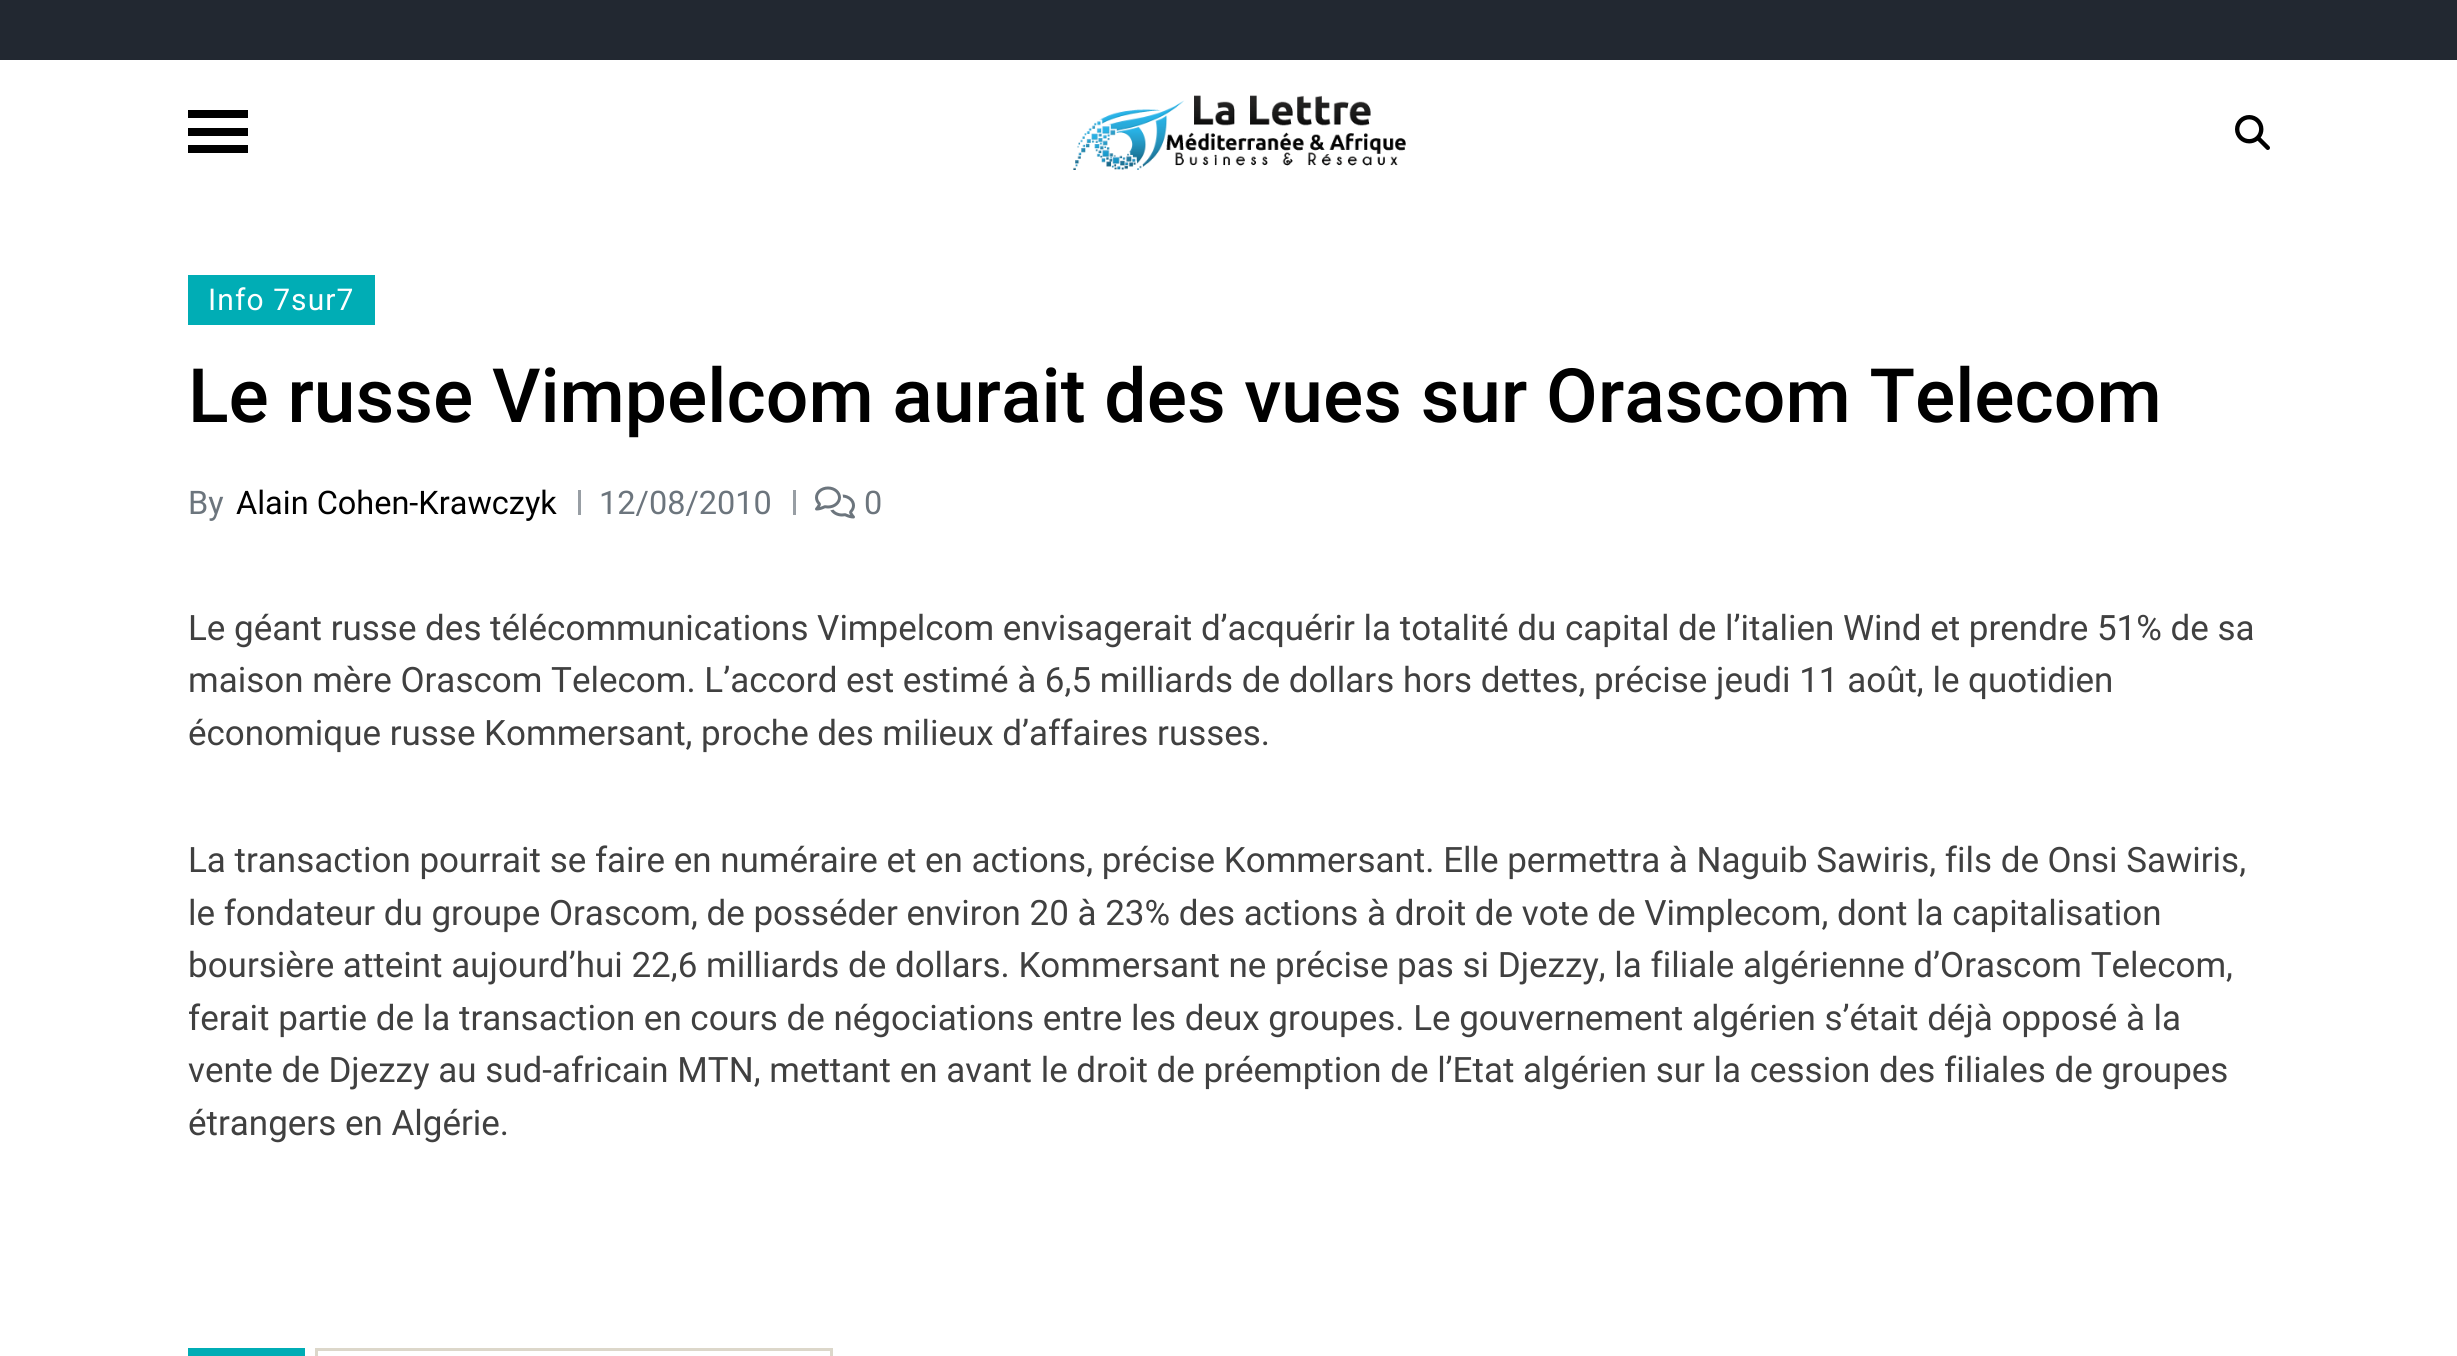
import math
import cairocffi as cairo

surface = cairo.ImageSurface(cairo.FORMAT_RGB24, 2457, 1356)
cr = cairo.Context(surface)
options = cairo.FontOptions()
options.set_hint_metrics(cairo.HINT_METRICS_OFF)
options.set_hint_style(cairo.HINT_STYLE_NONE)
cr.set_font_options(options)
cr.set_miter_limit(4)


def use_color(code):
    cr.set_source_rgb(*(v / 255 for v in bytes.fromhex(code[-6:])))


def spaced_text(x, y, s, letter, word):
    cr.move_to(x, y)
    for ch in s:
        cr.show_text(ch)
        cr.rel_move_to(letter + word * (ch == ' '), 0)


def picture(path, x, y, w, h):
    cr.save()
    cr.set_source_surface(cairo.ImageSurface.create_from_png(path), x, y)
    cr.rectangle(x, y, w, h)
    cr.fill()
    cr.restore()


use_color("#ffffff")
cr.paint()
use_color("#222831")
cr.rectangle(0, 0, 2457, 60)
cr.fill()
use_color("#000000")
cr.rectangle(188, 110, 60, 8)
cr.fill()
cr.rectangle(188, 128, 60, 8)
cr.fill()
cr.rectangle(188, 145, 60, 8)
cr.fill()
picture("img1.png", 1073, 95, 333, 75)
picture("img2.png", 2235, 115, 35, 35)
use_color("#00adb5")
cr.rectangle(188, 275, 187, 50)
cr.fill()
cr.select_font_face("Roboto")
cr.set_font_size(30)
use_color("#ffffff")
spaced_text(208, 310, "Info 7sur7", 1.1, 0)
cr.select_font_face("Roboto Medium")
cr.set_font_size(75)
use_color("#000000")
cr.move_to(188, 422)
cr.show_text("Le russe Vimpelcom aurait des vues sur Orascom Telecom")
cr.select_font_face("Roboto")
cr.set_font_size(32.5)
use_color("#6c757d")
cr.move_to(188, 514)
cr.show_text("By")
use_color("#000000")
cr.move_to(236, 514)
cr.show_text("Alain Cohen-Krawczyk")
use_color("#989ea4")
cr.rectangle(578, 490, 3, 25)
cr.fill()
use_color("#6c757d")
cr.move_to(599, 514)
cr.show_text("12/08/2010")
use_color("#989ea4")
cr.rectangle(793, 490, 3, 25)
cr.fill()
picture("img3.png", 815, 486, 40, 33)
use_color("#6c757d")
cr.move_to(864, 514)
cr.show_text("0")
cr.set_font_size(35)
use_color("#404040")
cr.move_to(188, 640)
cr.show_text("Le géant russe des télécommunications Vimpelcom envisagerait d’acquérir la totalité du capital de l’italien Wind et prendre 51% de sa")
cr.move_to(188, 692)
cr.show_text("maison mère Orascom Telecom. L’accord est estimé à 6,5 milliards de dollars hors dettes, précise jeudi 11 août, le quotidien")
cr.move_to(188, 745)
cr.show_text("économique russe Kommersant, proche des milieux d’affaires russes.")
cr.move_to(188, 872)
cr.show_text("La transaction pourrait se faire en numéraire et en actions, précise Kommersant. Elle permettra à Naguib Sawiris, fils de Onsi Sawiris,")
cr.move_to(188, 925)
cr.show_text("le fondateur du groupe Orascom, de posséder environ 20 à 23% des actions à droit de vote de Vimplecom, dont la capitalisation")
cr.move_to(188, 977)
cr.show_text("boursière atteint aujourd’hui 22,6 milliards de dollars. Kommersant ne précise pas si Djezzy, la filiale algérienne d’Orascom Telecom,")
cr.move_to(188, 1030)
cr.show_text("ferait partie de la transaction en cours de négociations entre les deux groupes. Le gouvernement algérien s’était déjà opposé à la")
cr.move_to(188, 1082)
cr.show_text("vente de Djezzy au sud-africain MTN, mettant en avant le droit de préemption de l’Etat algérien sur la cession des filiales de groupes")
cr.move_to(188, 1135)
cr.show_text("étrangers en Algérie.")
use_color("#00adb5")
cr.rectangle(188, 1348, 117, 8)
cr.fill()
cr.rectangle(316.5, 1349.5, 515, 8)
use_color("#dcd7ca")
cr.set_line_width(3)
cr.stroke()
surface.write_to_png("result.png")
